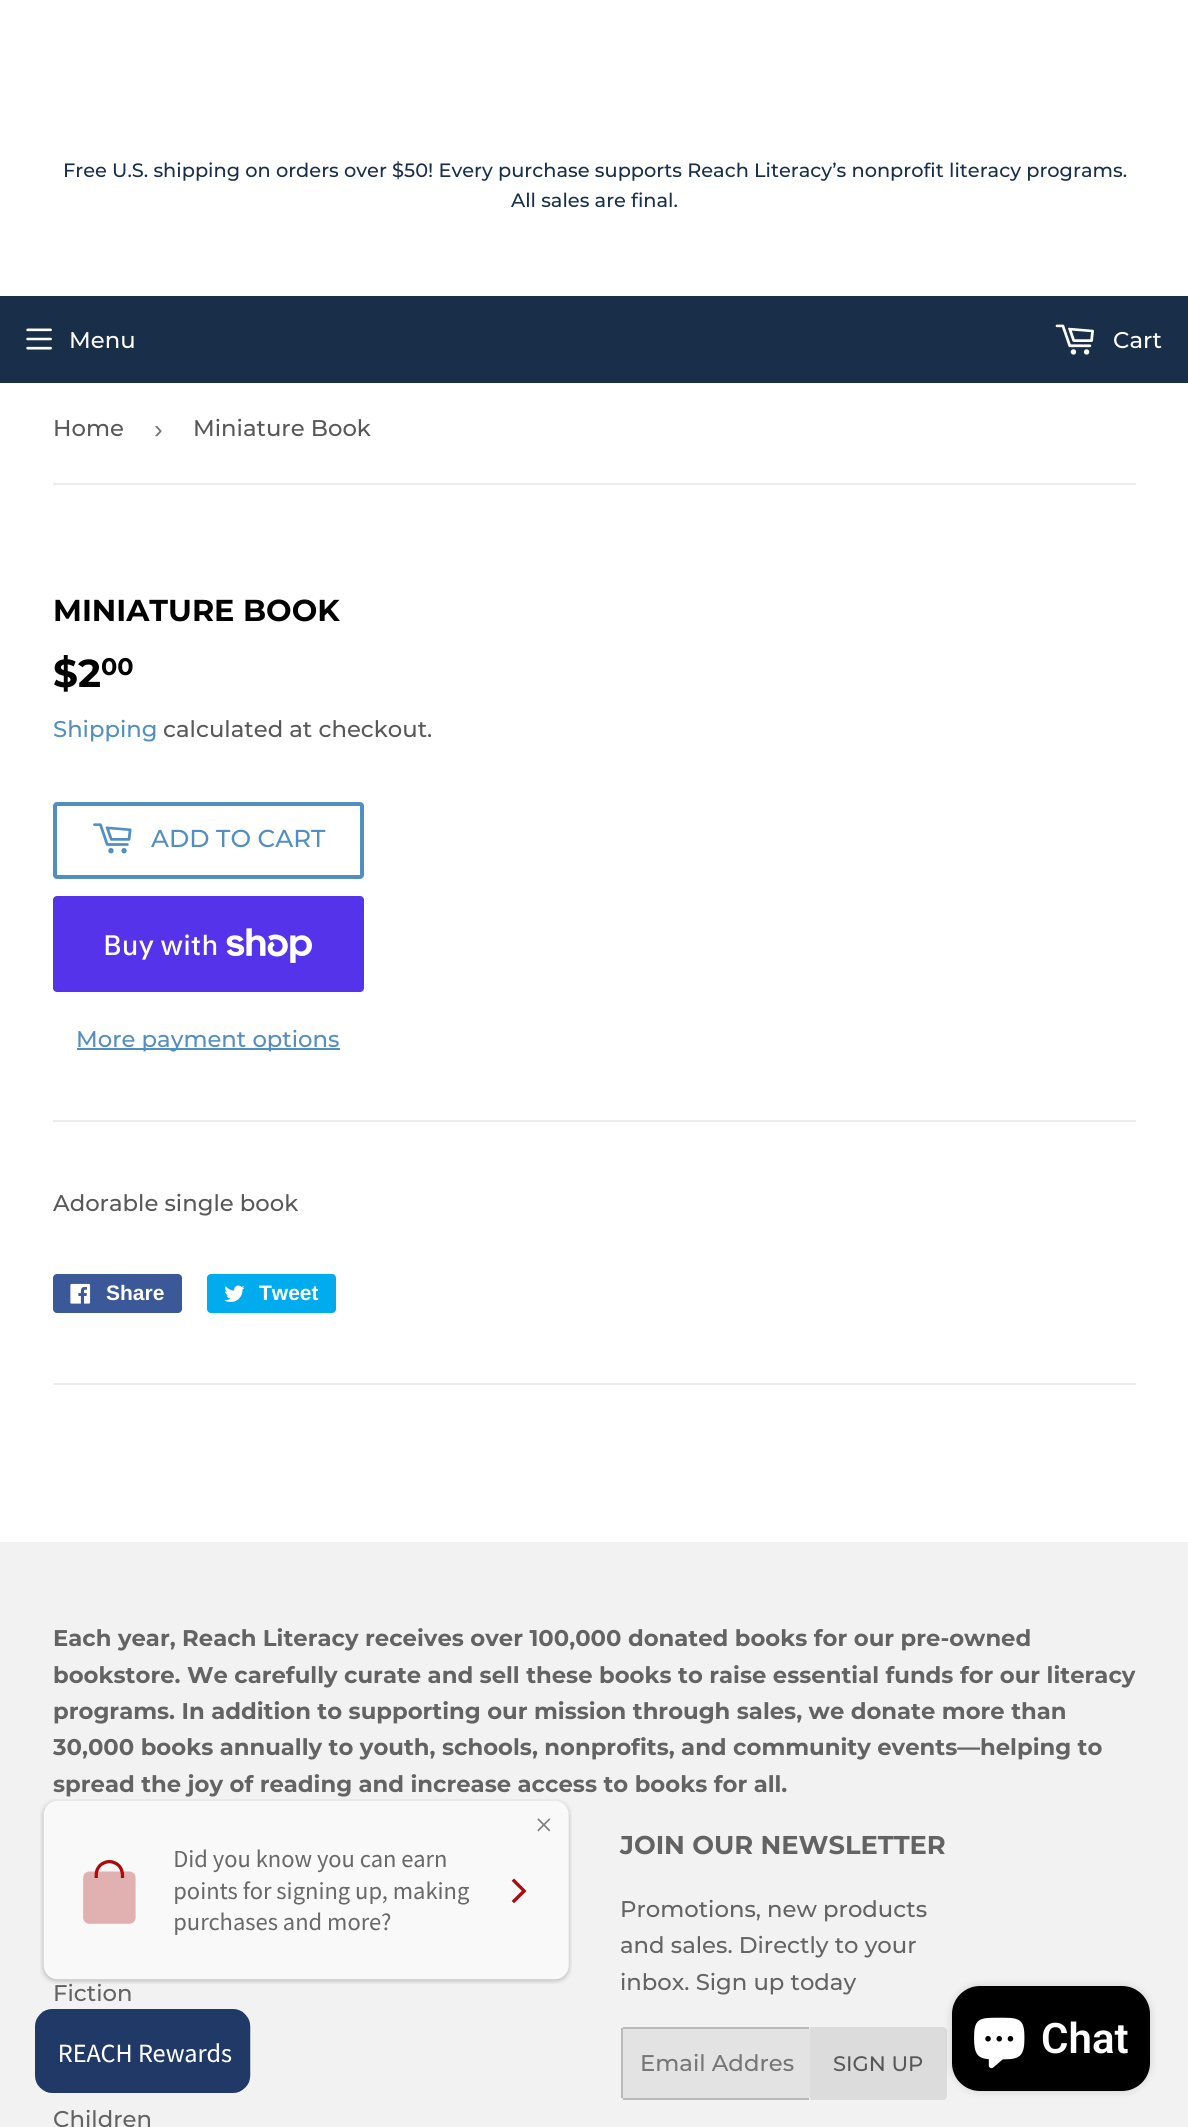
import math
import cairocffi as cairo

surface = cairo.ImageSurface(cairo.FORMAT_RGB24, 1188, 2127)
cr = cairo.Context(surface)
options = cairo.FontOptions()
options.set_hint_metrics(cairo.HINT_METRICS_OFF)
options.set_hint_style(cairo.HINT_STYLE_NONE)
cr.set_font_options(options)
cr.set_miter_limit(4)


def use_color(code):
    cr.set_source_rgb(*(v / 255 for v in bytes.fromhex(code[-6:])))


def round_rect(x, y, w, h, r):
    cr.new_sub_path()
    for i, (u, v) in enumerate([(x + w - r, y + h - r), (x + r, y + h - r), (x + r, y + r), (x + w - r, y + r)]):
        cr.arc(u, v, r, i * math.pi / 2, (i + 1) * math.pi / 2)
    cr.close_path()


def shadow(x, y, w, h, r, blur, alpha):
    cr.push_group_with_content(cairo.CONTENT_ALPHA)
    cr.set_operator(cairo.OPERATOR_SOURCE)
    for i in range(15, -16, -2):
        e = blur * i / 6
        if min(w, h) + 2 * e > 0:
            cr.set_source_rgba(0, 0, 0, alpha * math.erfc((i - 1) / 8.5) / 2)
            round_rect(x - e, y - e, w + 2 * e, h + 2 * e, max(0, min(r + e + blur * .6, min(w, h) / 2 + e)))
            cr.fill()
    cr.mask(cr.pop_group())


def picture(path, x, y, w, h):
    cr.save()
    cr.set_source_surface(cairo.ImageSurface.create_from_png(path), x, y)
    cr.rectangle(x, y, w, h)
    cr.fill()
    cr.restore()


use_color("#ffffff")
cr.paint()
cr.select_font_face("Montserrat Medium")
cr.set_font_size(19.35)
use_color("#182e49")
cr.move_to(63, 177)
cr.show_text("Free U.S. shipping on orders over $50! Every purchase supports Reach Literacy’s nonprofit literacy programs.")
cr.move_to(511, 207)
cr.show_text("All sales are final.")
cr.rectangle(0, 296, 1188, 87)
cr.fill()
picture("img1.png", 26, 328, 26, 22)
cr.set_font_size(22.75)
use_color("#ffffff")
cr.move_to(69, 348)
cr.show_text("Menu")
picture("img2.png", 1055, 324, 39, 31)
cr.move_to(1113, 348)
cr.show_text("Cart")
use_color("#ececec")
cr.rectangle(53, 483, 1083, 2)
cr.fill()
use_color("#585858")
cr.move_to(53, 436)
cr.show_text("Home")
cr.select_font_face("Liberation Sans")
cr.set_font_size(26)
use_color("#767676")
cr.move_to(154, 438)
cr.show_text("›")
cr.select_font_face("Montserrat Medium")
cr.set_font_size(22.75)
use_color("#585858")
cr.move_to(193, 436)
cr.show_text("Miniature Book")
cr.select_font_face("Montserrat", cairo.FONT_SLANT_NORMAL, cairo.FONT_WEIGHT_BOLD)
cr.set_font_size(30.25)
use_color("#000000")
cr.move_to(53, 621)
cr.show_text("MINIATURE BOOK")
cr.set_font_size(39)
cr.move_to(53, 687)
cr.show_text("$2")
cr.set_font_size(24)
cr.move_to(101, 675)
cr.show_text("00")
cr.select_font_face("Montserrat Medium")
cr.set_font_size(22.75)
use_color("#528ec1")
cr.move_to(53, 737)
cr.show_text("Shipping")
use_color("#585858")
cr.move_to(163, 737)
cr.show_text("calculated at checkout.")
round_rect(55, 804, 307, 73, 2)
use_color("#528ec1")
cr.set_line_width(4)
cr.stroke()
picture("img3.png", 93, 823, 39, 31)
cr.set_font_size(24.5)
cr.move_to(151, 847)
cr.show_text("ADD TO CART")
use_color("#5433eb")
round_rect(53, 896, 311, 96, 4)
cr.fill()
cr.select_font_face("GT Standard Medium")
cr.set_font_size(28)
use_color("#ffffff")
cr.move_to(103, 955)
cr.show_text("Buy with")
picture("img4.png", 226, 928, 86, 35)
use_color("#528ec1")
cr.rectangle(77, 1048, 263, 2)
cr.fill()
cr.select_font_face("Montserrat Medium")
cr.set_font_size(22.75)
cr.move_to(76, 1047)
cr.show_text("More payment options")
use_color("#ececec")
cr.rectangle(53, 1120, 1083, 2)
cr.fill()
use_color("#585858")
cr.move_to(53, 1211)
cr.show_text("Adorable single book")
use_color("#3b5998")
round_rect(53, 1274, 129, 39, 4)
cr.fill()
picture("img5.png", 70, 1283, 21, 21)
cr.select_font_face("Liberation Sans", cairo.FONT_SLANT_NORMAL, cairo.FONT_WEIGHT_BOLD)
cr.set_font_size(21)
use_color("#ffffff")
cr.move_to(106, 1300)
cr.show_text("Share")
use_color("#00aced")
round_rect(207, 1274, 129, 39, 4)
cr.fill()
picture("img6.png", 224, 1285, 21, 17)
use_color("#ffffff")
cr.move_to(259, 1300)
cr.show_text("Tweet")
use_color("#ececec")
cr.rectangle(53, 1383, 1083, 2)
cr.fill()
use_color("#f2f2f2")
cr.rectangle(0, 1542, 1188, 585)
cr.fill()
cr.select_font_face("Montserrat", cairo.FONT_SLANT_NORMAL, cairo.FONT_WEIGHT_BOLD)
cr.set_font_size(22.75)
use_color("#636363")
cr.move_to(53, 1646)
cr.show_text("Each year, Reach Literacy receives over 100,000 donated books for our pre-owned")
cr.move_to(53, 1683)
cr.show_text("bookstore. We carefully curate and sell these books to raise essential funds for our literacy")
cr.move_to(53, 1719)
cr.show_text("programs. In addition to supporting our mission through sales, we donate more than")
cr.move_to(53, 1755)
cr.show_text("30,000 books annually to youth, schools, nonprofits, and community events—helping to")
cr.move_to(53, 1792)
cr.show_text("spread the joy of reading and increase access to books for all.")
cr.select_font_face("Montserrat Medium")
cr.move_to(53, 2001)
cr.show_text("Fiction")
cr.move_to(53, 2127)
cr.show_text("Children")
cr.select_font_face("Montserrat", cairo.FONT_SLANT_NORMAL, cairo.FONT_WEIGHT_BOLD)
cr.set_font_size(25.75)
cr.move_to(620, 1854)
cr.show_text("JOIN OUR NEWSLETTER")
cr.select_font_face("Montserrat Medium")
cr.set_font_size(22.75)
cr.move_to(620, 1917)
cr.show_text("Promotions, new products")
cr.move_to(620, 1953)
cr.show_text("and sales. Directly to your")
cr.move_to(620, 1990)
cr.show_text("inbox. Sign up today")
use_color("#e3e3e3")
round_rect(621, 2027, 189, 73, 4)
cr.fill()
use_color("#b9b9b9")
cr.rectangle(623, 2027, 186, 2)
cr.fill()
cr.rectangle(623, 2098, 186, 2)
cr.fill()
cr.rectangle(621, 2028, 2, 70)
cr.fill()
use_color("#767676")
cr.move_to(640, 2071)
cr.show_text("Email Addres")
use_color("#dcdcdc")
cr.new_path()
cr.move_to(810, 2027)
cr.line_to(943, 2027)
cr.curve_to(945, 2027, 947, 2029, 947, 2031)
cr.line_to(947, 2096)
cr.curve_to(947, 2098, 945, 2100, 943, 2100)
cr.line_to(810, 2100)
cr.close_path()
cr.fill()
cr.set_font_size(21)
use_color("#585858")
cr.move_to(833, 2071)
cr.show_text("SIGN UP")
picture("img7.png", 40, 1799, 532, 185)
picture("img8.png", 35, 2009, 216, 84)
use_color("#000000")
shadow(952, 1986, 198, 105, 28, 4.5, 0.15)
use_color("#000000")
round_rect(952, 1986, 198, 105, 28)
cr.fill()
picture("img9.png", 974, 2017, 51, 52)
cr.select_font_face("Roboto SemiBold")
cr.set_font_size(42)
use_color("#ffffff")
cr.move_to(1041, 2053)
cr.show_text("Chat")
surface.write_to_png("result.png")
